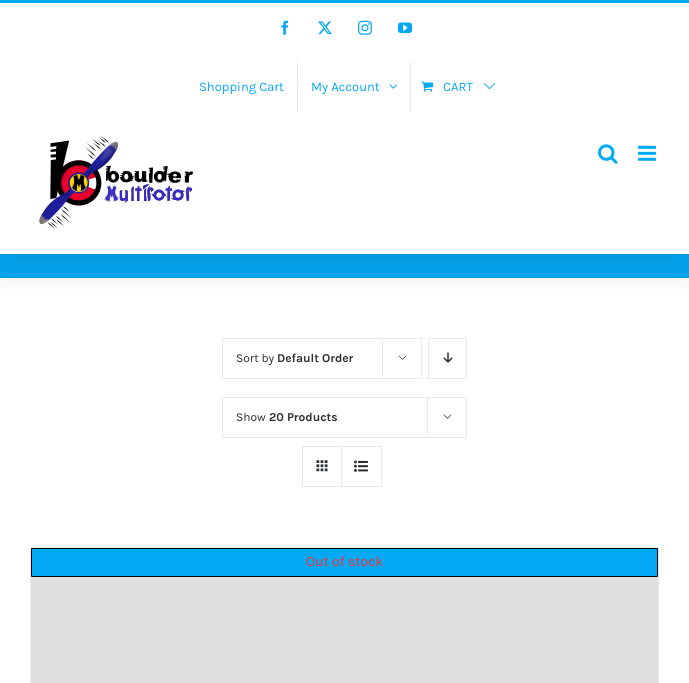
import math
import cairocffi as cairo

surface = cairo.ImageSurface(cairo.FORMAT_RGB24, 689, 683)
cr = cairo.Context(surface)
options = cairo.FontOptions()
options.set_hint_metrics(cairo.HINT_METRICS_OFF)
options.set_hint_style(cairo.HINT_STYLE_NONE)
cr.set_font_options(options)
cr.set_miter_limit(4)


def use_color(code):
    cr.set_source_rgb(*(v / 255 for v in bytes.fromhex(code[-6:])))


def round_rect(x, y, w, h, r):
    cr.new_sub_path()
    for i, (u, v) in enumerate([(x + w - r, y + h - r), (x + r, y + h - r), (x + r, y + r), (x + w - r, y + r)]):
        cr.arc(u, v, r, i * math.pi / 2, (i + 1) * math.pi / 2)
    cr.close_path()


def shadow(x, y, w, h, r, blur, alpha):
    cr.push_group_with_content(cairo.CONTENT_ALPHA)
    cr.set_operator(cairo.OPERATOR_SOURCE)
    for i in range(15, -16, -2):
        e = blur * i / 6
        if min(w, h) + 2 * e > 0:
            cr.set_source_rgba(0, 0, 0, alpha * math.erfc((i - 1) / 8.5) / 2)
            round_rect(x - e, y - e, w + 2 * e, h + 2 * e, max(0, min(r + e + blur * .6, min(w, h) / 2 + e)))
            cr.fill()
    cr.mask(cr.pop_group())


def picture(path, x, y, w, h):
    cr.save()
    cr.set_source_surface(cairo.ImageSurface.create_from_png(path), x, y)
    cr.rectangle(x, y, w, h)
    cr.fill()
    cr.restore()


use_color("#ffffff")
cr.paint()
use_color("#03a9f4")
cr.rectangle(0, 254, 689, 24)
cr.fill()
cr.save()
cr.rectangle(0, 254, 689, 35)
cr.clip()
use_color("#000000")
shadow(2, 12, 685, 250, 0, 25, 0.14)
cr.restore()
cr.rectangle(0, 0, 689, 3)
cr.fill()
picture("img1.png", 281, 20, 8, 15)
picture("img2.png", 318, 21, 14, 14)
picture("img3.png", 358, 20, 14, 15)
picture("img4.png", 398, 22, 14, 11)
cr.select_font_face("Karla")
cr.set_font_size(13)
cr.move_to(199, 91)
cr.show_text("Shopping Cart")
use_color("#eaeaea")
cr.rectangle(297, 62, 1, 50)
cr.fill()
use_color("#03a9f4")
cr.move_to(311, 91)
cr.show_text("My Account")
picture("img5.png", 389, 84, 8, 5)
use_color("#eaeaea")
cr.rectangle(410, 62, 1, 50)
cr.fill()
picture("img6.png", 421, 81, 13, 11)
use_color("#03a9f4")
cr.move_to(443, 91)
cr.show_text("CART")
picture("img7.png", 484, 83, 11, 7)
picture("img8.png", 39, 136, 155, 94)
picture("img9.png", 598, 144, 20, 20)
picture("img10.png", 638, 145, 18, 16)
cr.rectangle(222.5, 338.5, 199, 40)
use_color("#eaeaea")
cr.set_line_width(1)
cr.stroke()
cr.set_font_size(12)
use_color("#2b2e32")
cr.move_to(236, 362)
cr.show_text("Sort by")
cr.select_font_face("Karla", cairo.FONT_SLANT_NORMAL, cairo.FONT_WEIGHT_BOLD)
cr.move_to(277, 362)
cr.show_text("Default Order")
use_color("#eaeaea")
cr.rectangle(382, 338, 1, 39)
cr.fill()
picture("img11.png", 398, 355, 9, 5)
cr.rectangle(428.5, 338.5, 38, 40)
cr.stroke()
picture("img12.png", 443, 352, 10, 11)
cr.rectangle(222.5, 397.5, 244, 40)
cr.stroke()
cr.select_font_face("Karla")
use_color("#2b2e32")
cr.move_to(236, 421)
cr.show_text("Show")
cr.select_font_face("Karla", cairo.FONT_SLANT_NORMAL, cairo.FONT_WEIGHT_BOLD)
cr.move_to(269, 421)
cr.show_text("20 Products")
use_color("#eaeaea")
cr.rectangle(427, 397, 1, 39)
cr.fill()
picture("img11.png", 443, 414, 9, 5)
cr.rectangle(302.5, 446.5, 79, 40)
cr.stroke()
cr.rectangle(341, 447, 1, 39)
cr.fill()
picture("img13.png", 316, 460, 12, 12)
picture("img14.png", 354, 460, 14, 12)
cr.rectangle(30, 547, 629, 1)
cr.fill()
cr.rectangle(658, 547, 1, 136)
cr.fill()
cr.rectangle(30, 547, 1, 136)
cr.fill()
use_color("#e0dede")
cr.rectangle(31, 548, 627, 135)
cr.fill()
use_color("#03a9f4")
round_rect(31.5, 548.5, 626, 28, 0.5)
cr.fill_preserve()
use_color("#000000")
cr.stroke()
cr.select_font_face("Karla")
cr.set_font_size(14)
use_color("#ff2d2d")
cr.move_to(306, 566)
cr.show_text("Out of stock")
surface.write_to_png("result.png")
